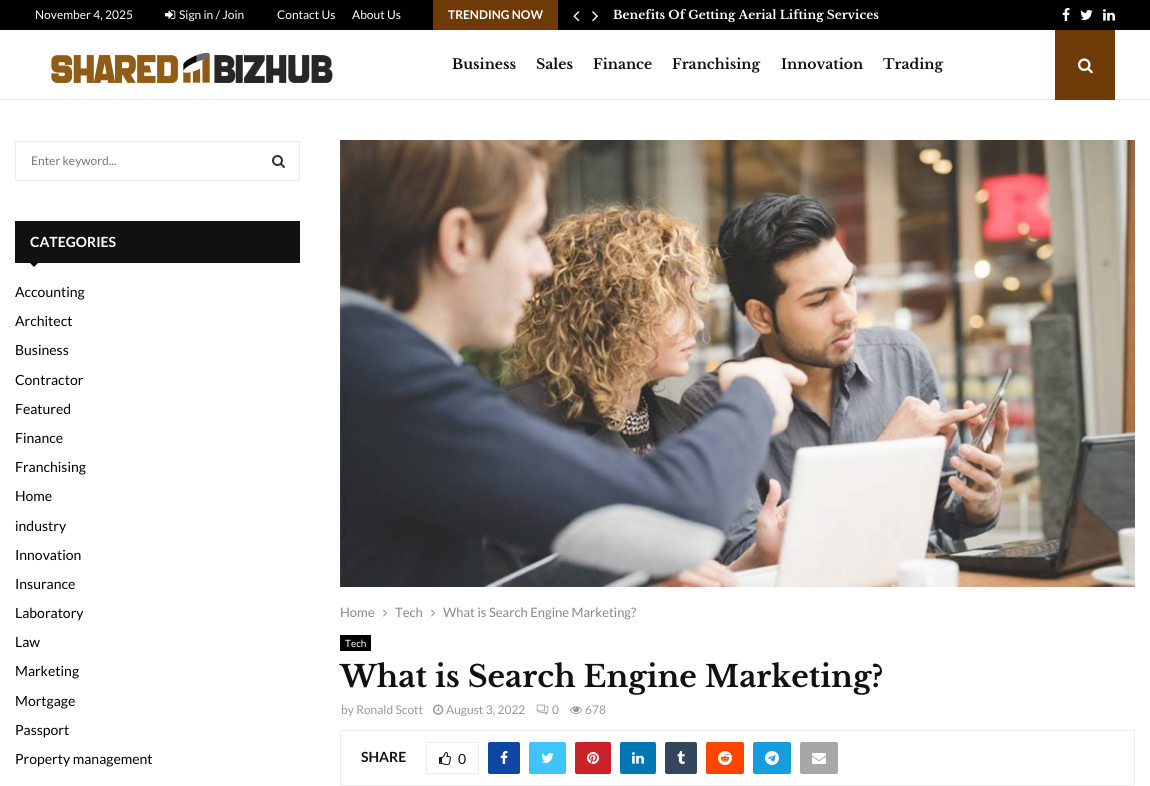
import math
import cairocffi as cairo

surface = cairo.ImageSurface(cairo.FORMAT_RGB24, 1150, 786)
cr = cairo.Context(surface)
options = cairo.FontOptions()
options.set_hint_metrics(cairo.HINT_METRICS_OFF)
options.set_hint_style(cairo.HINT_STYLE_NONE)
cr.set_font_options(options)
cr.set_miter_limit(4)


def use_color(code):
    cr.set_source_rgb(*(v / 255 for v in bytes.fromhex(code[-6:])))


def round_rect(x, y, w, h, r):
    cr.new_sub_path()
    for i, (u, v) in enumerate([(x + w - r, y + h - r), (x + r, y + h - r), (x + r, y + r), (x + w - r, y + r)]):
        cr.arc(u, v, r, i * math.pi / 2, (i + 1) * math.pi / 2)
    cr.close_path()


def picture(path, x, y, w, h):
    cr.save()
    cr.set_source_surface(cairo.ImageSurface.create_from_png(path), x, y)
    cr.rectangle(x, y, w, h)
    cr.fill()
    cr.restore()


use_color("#ffffff")
cr.paint()
use_color("#000000")
cr.rectangle(0, 0, 1150, 30)
cr.fill()
cr.select_font_face("Lato")
cr.set_font_size(12)
use_color("#ffffff")
cr.move_to(35, 19)
cr.show_text("November 4, 2025")
picture("img1.png", 165, 10, 11, 9)
cr.move_to(179, 19)
cr.show_text("Sign in / Join")
cr.move_to(277, 19)
cr.show_text("Contact Us")
cr.move_to(352, 19)
cr.show_text("About Us")
use_color("#6e3a07")
cr.rectangle(433, 0, 125, 30)
cr.fill()
cr.select_font_face("Lato", cairo.FONT_SLANT_NORMAL, cairo.FONT_WEIGHT_BOLD)
use_color("#ffffff")
cr.move_to(448, 19)
cr.show_text("TRENDING NOW")
picture("img2.png", 573, 11, 7, 11)
picture("img3.png", 592, 11, 6, 11)
cr.select_font_face("Libre Baskerville", cairo.FONT_SLANT_NORMAL, cairo.FONT_WEIGHT_BOLD)
cr.move_to(613, 19)
cr.show_text("Benefits Of Getting Aerial Lifting Services")
picture("img4.png", 1062, 8, 8, 13)
picture("img5.png", 1080, 10, 13, 10)
picture("img6.png", 1103, 9, 12, 12)
use_color("#ececec")
cr.rectangle(0, 99, 1150, 1)
cr.fill()
picture("img7.png", 51, 52, 282, 31)
cr.set_font_size(14)
use_color("#111111")
cr.move_to(452, 69)
cr.show_text("Business")
cr.move_to(536, 69)
cr.show_text("Sales")
cr.move_to(593, 69)
cr.show_text("Finance")
cr.move_to(672, 69)
cr.show_text("Franchising")
cr.move_to(781, 69)
cr.show_text("Innovation")
cr.move_to(883, 69)
cr.show_text("Trading")
use_color("#6e3a07")
cr.rectangle(1055, 30, 60, 70)
cr.fill()
picture("img8.png", 1078, 58, 15, 16)
cr.rectangle(15.5, 141.5, 284, 39)
use_color("#ececec")
cr.set_line_width(1)
cr.stroke()
cr.select_font_face("Lato")
cr.set_font_size(12)
use_color("#757575")
cr.move_to(31, 165)
cr.show_text("Enter keyword...")
picture("img9.png", 272, 155, 13, 13)
use_color("#111111")
cr.rectangle(15, 221, 285, 42)
cr.fill()
cr.select_font_face("Lato", cairo.FONT_SLANT_NORMAL, cairo.FONT_WEIGHT_BOLD)
cr.set_font_size(14)
use_color("#ffffff")
cr.move_to(30, 247)
cr.show_text("CATEGORIES")
use_color("#000000")
cr.new_path()
cr.move_to(30, 263)
cr.line_to(38, 263)
cr.line_to(34, 267)
cr.close_path()
cr.fill()
cr.select_font_face("Lato")
cr.move_to(15, 297)
cr.show_text("Accounting")
cr.move_to(15, 326)
cr.show_text("Architect")
cr.move_to(15, 355)
cr.show_text("Business")
cr.move_to(15, 385)
cr.show_text("Contractor")
cr.move_to(15, 414)
cr.show_text("Featured")
cr.move_to(15, 443)
cr.show_text("Finance")
cr.move_to(15, 472)
cr.show_text("Franchising")
cr.move_to(15, 501)
cr.show_text("Home")
cr.move_to(15, 531)
cr.show_text("industry")
cr.move_to(15, 560)
cr.show_text("Innovation")
cr.move_to(15, 589)
cr.show_text("Insurance")
cr.move_to(15, 618)
cr.show_text("Laboratory")
cr.move_to(15, 647)
cr.show_text("Law")
cr.move_to(15, 676)
cr.show_text("Marketing")
cr.move_to(15, 706)
cr.show_text("Mortgage")
cr.move_to(15, 735)
cr.show_text("Passport")
cr.move_to(15, 764)
cr.show_text("Property management")
picture("img10.png", 340, 140, 795, 447)
cr.set_font_size(13)
use_color("#888888")
cr.move_to(340, 617)
cr.show_text("Home")
picture("img11.png", 383, 609, 4, 8)
cr.move_to(395, 617)
cr.show_text("Tech")
picture("img11.png", 431, 609, 4, 8)
cr.move_to(443, 617)
cr.show_text("What is Search Engine Marketing?")
use_color("#000000")
cr.rectangle(340, 635, 31, 16)
cr.fill()
cr.set_font_size(10)
use_color("#ffffff")
cr.move_to(345, 647)
cr.show_text("Tech")
cr.select_font_face("Libre Baskerville", cairo.FONT_SLANT_NORMAL, cairo.FONT_WEIGHT_BOLD)
cr.set_font_size(30)
use_color("#111111")
cr.move_to(340, 687)
cr.show_text("What is Search Engine Marketing?")
cr.select_font_face("Lato")
cr.set_font_size(12)
use_color("#999999")
cr.move_to(341, 714)
cr.show_text("by Ronald Scott")
picture("img12.png", 433, 704, 11, 11)
cr.move_to(446, 714)
cr.show_text("August 3, 2022")
picture("img13.png", 536, 704, 13, 11)
cr.move_to(552, 714)
cr.show_text("0")
picture("img14.png", 570, 706, 12, 8)
cr.move_to(585, 714)
cr.show_text("678")
cr.rectangle(340.5, 730.5, 794, 55)
use_color("#ececec")
cr.stroke()
cr.select_font_face("Lato", cairo.FONT_SLANT_NORMAL, cairo.FONT_WEIGHT_BOLD)
cr.set_font_size(14)
use_color("#111111")
cr.move_to(361, 762)
cr.show_text("SHARE")
round_rect(426.5, 742.5, 52, 31, 1.5)
use_color("#ececec")
cr.stroke()
picture("img15.png", 439, 752, 12, 13)
cr.select_font_face("Lato")
use_color("#111111")
cr.move_to(458, 764)
cr.show_text("0")
use_color("#0d47a1")
round_rect(488, 742, 32, 32, 2)
cr.fill()
picture("img16.png", 500, 751, 8, 13)
use_color("#40c4ff")
round_rect(529, 742, 37, 32, 2)
cr.fill()
picture("img17.png", 541, 753, 13, 10)
use_color("#c92228")
round_rect(575, 742, 36, 32, 2)
cr.fill()
picture("img18.png", 587, 752, 12, 12)
use_color("#0077b5")
round_rect(620, 742, 36, 32, 2)
cr.fill()
picture("img19.png", 632, 752, 12, 12)
use_color("#34465d")
round_rect(665, 742, 32, 32, 2)
cr.fill()
picture("img20.png", 677, 751, 8, 13)
use_color("#ff4500")
round_rect(706, 742, 38, 32, 2)
cr.fill()
picture("img21.png", 718, 751, 14, 14)
use_color("#179cde")
round_rect(753, 742, 38, 32, 2)
cr.fill()
picture("img22.png", 765, 751, 14, 14)
use_color("#a7a7a7")
round_rect(800, 742, 38, 32, 2)
cr.fill()
picture("img23.png", 812, 753, 14, 11)
surface.write_to_png("result.png")
